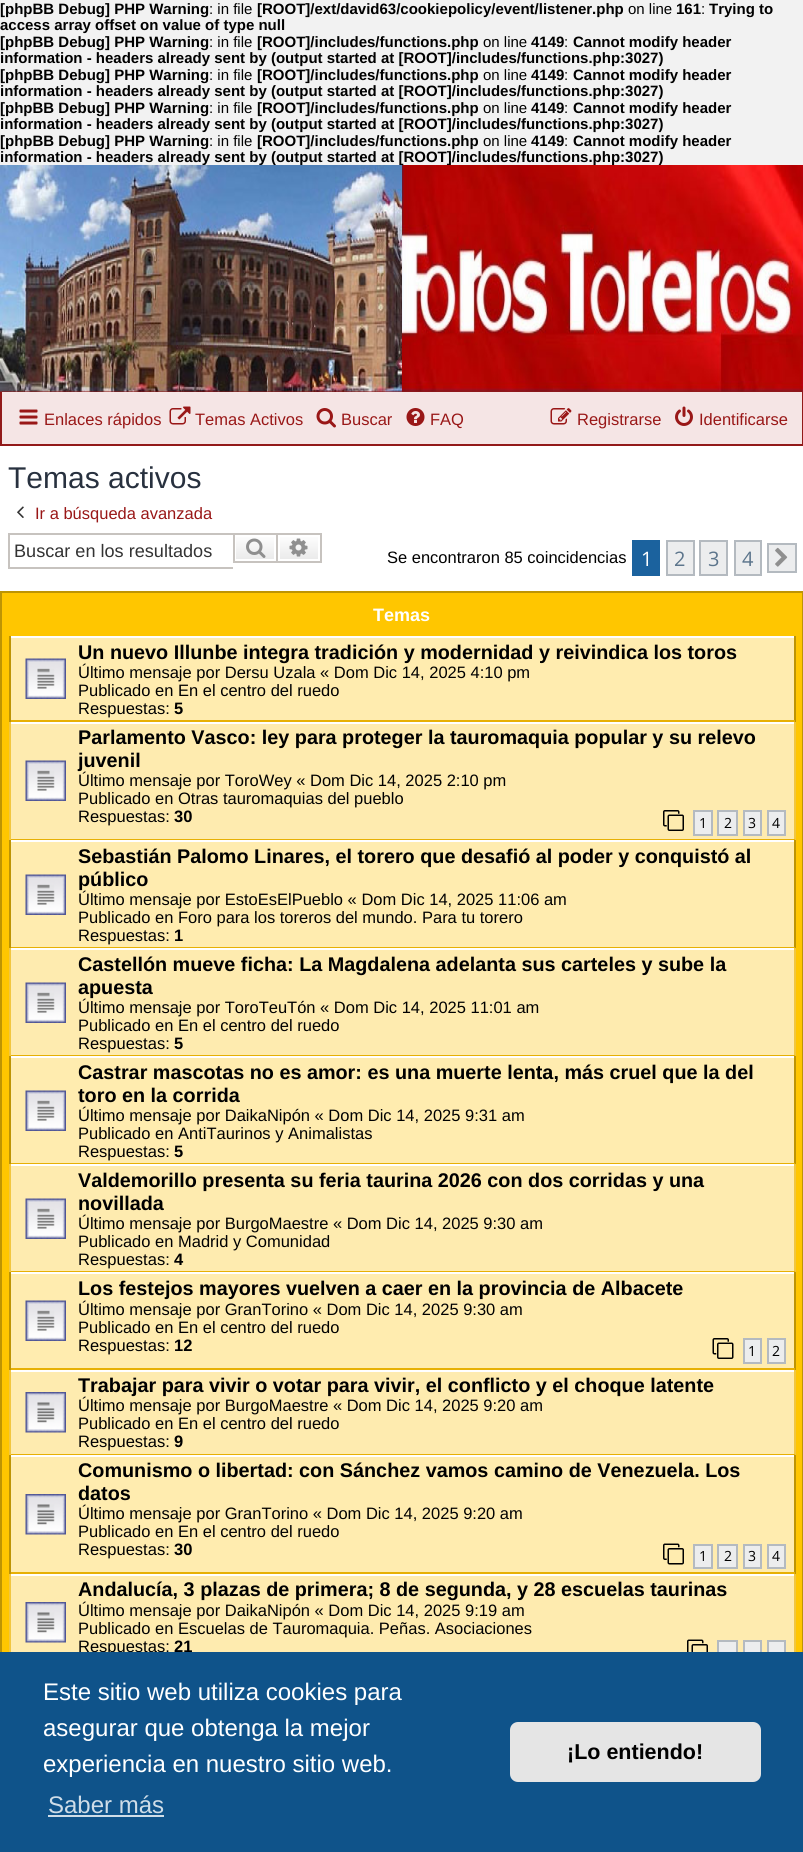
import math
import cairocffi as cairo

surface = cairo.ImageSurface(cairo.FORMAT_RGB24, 803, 1852)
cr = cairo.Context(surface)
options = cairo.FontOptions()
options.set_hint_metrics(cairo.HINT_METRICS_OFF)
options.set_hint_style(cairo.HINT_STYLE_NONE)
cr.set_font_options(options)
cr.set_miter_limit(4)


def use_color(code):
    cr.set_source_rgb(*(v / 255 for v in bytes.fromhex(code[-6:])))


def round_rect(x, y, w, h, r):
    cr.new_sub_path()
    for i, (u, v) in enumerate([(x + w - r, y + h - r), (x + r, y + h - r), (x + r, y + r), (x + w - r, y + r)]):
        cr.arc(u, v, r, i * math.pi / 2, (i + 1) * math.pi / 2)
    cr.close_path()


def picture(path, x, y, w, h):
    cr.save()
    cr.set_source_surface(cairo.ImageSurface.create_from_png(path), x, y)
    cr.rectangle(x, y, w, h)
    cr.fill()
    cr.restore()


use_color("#f2f2f2")
cr.paint()
cr.select_font_face("Liberation Sans", cairo.FONT_SLANT_NORMAL, cairo.FONT_WEIGHT_BOLD)
cr.set_font_size(15)
use_color("#000000")
cr.move_to(0, 14)
cr.show_text("[phpBB Debug] PHP Warning")
cr.select_font_face("Liberation Sans")
cr.move_to(209, 14)
cr.show_text(": in file")
cr.select_font_face("Liberation Sans", cairo.FONT_SLANT_NORMAL, cairo.FONT_WEIGHT_BOLD)
cr.move_to(257, 14)
cr.show_text("[ROOT]/ext/david63/cookiepolicy/event/listener.php")
cr.select_font_face("Liberation Sans")
cr.move_to(628, 14)
cr.show_text("on line")
cr.select_font_face("Liberation Sans", cairo.FONT_SLANT_NORMAL, cairo.FONT_WEIGHT_BOLD)
cr.move_to(676, 14)
cr.show_text("161")
cr.select_font_face("Liberation Sans")
cr.move_to(701, 14)
cr.show_text(":")
cr.select_font_face("Liberation Sans", cairo.FONT_SLANT_NORMAL, cairo.FONT_WEIGHT_BOLD)
cr.move_to(709, 14)
cr.show_text("Trying to")
cr.move_to(0, 30)
cr.show_text("access array offset on value of type null")
cr.move_to(0, 47)
cr.show_text("[phpBB Debug] PHP Warning")
cr.select_font_face("Liberation Sans")
cr.move_to(209, 47)
cr.show_text(": in file")
cr.select_font_face("Liberation Sans", cairo.FONT_SLANT_NORMAL, cairo.FONT_WEIGHT_BOLD)
cr.move_to(257, 47)
cr.show_text("[ROOT]/includes/functions.php")
cr.select_font_face("Liberation Sans")
cr.move_to(483, 47)
cr.show_text("on line")
cr.select_font_face("Liberation Sans", cairo.FONT_SLANT_NORMAL, cairo.FONT_WEIGHT_BOLD)
cr.move_to(531, 47)
cr.show_text("4149")
cr.select_font_face("Liberation Sans")
cr.move_to(564, 47)
cr.show_text(":")
cr.select_font_face("Liberation Sans", cairo.FONT_SLANT_NORMAL, cairo.FONT_WEIGHT_BOLD)
cr.move_to(573, 47)
cr.show_text("Cannot modify header")
cr.move_to(0, 63)
cr.show_text("information - headers already sent by (output started at [ROOT]/includes/functions.php:3027)")
cr.move_to(0, 80)
cr.show_text("[phpBB Debug] PHP Warning")
cr.select_font_face("Liberation Sans")
cr.move_to(209, 80)
cr.show_text(": in file")
cr.select_font_face("Liberation Sans", cairo.FONT_SLANT_NORMAL, cairo.FONT_WEIGHT_BOLD)
cr.move_to(257, 80)
cr.show_text("[ROOT]/includes/functions.php")
cr.select_font_face("Liberation Sans")
cr.move_to(483, 80)
cr.show_text("on line")
cr.select_font_face("Liberation Sans", cairo.FONT_SLANT_NORMAL, cairo.FONT_WEIGHT_BOLD)
cr.move_to(531, 80)
cr.show_text("4149")
cr.select_font_face("Liberation Sans")
cr.move_to(564, 80)
cr.show_text(":")
cr.select_font_face("Liberation Sans", cairo.FONT_SLANT_NORMAL, cairo.FONT_WEIGHT_BOLD)
cr.move_to(573, 80)
cr.show_text("Cannot modify header")
cr.move_to(0, 96)
cr.show_text("information - headers already sent by (output started at [ROOT]/includes/functions.php:3027)")
cr.move_to(0, 113)
cr.show_text("[phpBB Debug] PHP Warning")
cr.select_font_face("Liberation Sans")
cr.move_to(209, 113)
cr.show_text(": in file")
cr.select_font_face("Liberation Sans", cairo.FONT_SLANT_NORMAL, cairo.FONT_WEIGHT_BOLD)
cr.move_to(257, 113)
cr.show_text("[ROOT]/includes/functions.php")
cr.select_font_face("Liberation Sans")
cr.move_to(483, 113)
cr.show_text("on line")
cr.select_font_face("Liberation Sans", cairo.FONT_SLANT_NORMAL, cairo.FONT_WEIGHT_BOLD)
cr.move_to(531, 113)
cr.show_text("4149")
cr.select_font_face("Liberation Sans")
cr.move_to(564, 113)
cr.show_text(":")
cr.select_font_face("Liberation Sans", cairo.FONT_SLANT_NORMAL, cairo.FONT_WEIGHT_BOLD)
cr.move_to(573, 113)
cr.show_text("Cannot modify header")
cr.move_to(0, 129)
cr.show_text("information - headers already sent by (output started at [ROOT]/includes/functions.php:3027)")
cr.move_to(0, 146)
cr.show_text("[phpBB Debug] PHP Warning")
cr.select_font_face("Liberation Sans")
cr.move_to(209, 146)
cr.show_text(": in file")
cr.select_font_face("Liberation Sans", cairo.FONT_SLANT_NORMAL, cairo.FONT_WEIGHT_BOLD)
cr.move_to(257, 146)
cr.show_text("[ROOT]/includes/functions.php")
cr.select_font_face("Liberation Sans")
cr.move_to(483, 146)
cr.show_text("on line")
cr.select_font_face("Liberation Sans", cairo.FONT_SLANT_NORMAL, cairo.FONT_WEIGHT_BOLD)
cr.move_to(531, 146)
cr.show_text("4149")
cr.select_font_face("Liberation Sans")
cr.move_to(564, 146)
cr.show_text(":")
cr.select_font_face("Liberation Sans", cairo.FONT_SLANT_NORMAL, cairo.FONT_WEIGHT_BOLD)
cr.move_to(573, 146)
cr.show_text("Cannot modify header")
cr.move_to(0, 162)
cr.show_text("information - headers already sent by (output started at [ROOT]/includes/functions.php:3027)")
use_color("#ffffff")
cr.rectangle(0, 446, 803, 145)
cr.fill()
use_color("#f5e5e5")
cr.rectangle(1, 391, 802, 54)
cr.fill_preserve()
use_color("#921919")
cr.stroke()
picture("img1.png", 0, 165, 402, 227)
picture("img2.png", 402, 165, 401, 227)
picture("img3.png", 19, 409, 19, 16)
cr.select_font_face("Liberation Sans")
cr.set_font_size(16.5)
use_color("#991717")
cr.move_to(44, 425)
cr.show_text("Enlaces rápidos")
picture("img4.png", 169, 406, 22, 19)
cr.move_to(195, 425)
cr.show_text("Temas Activos")
picture("img5.png", 316, 408, 20, 20)
cr.move_to(341, 425)
cr.show_text("Buscar")
picture("img6.png", 406, 408, 19, 18)
cr.move_to(430, 425)
cr.show_text("FAQ")
picture("img7.png", 550, 408, 22, 17)
cr.move_to(577, 425)
cr.show_text("Registrarse")
picture("img8.png", 675, 406, 18, 20)
cr.move_to(699, 425)
cr.show_text("Identificarse")
cr.set_font_size(30)
use_color("#28313f")
cr.move_to(8, 488)
cr.show_text("Temas activos")
picture("img9.png", 17, 506, 7, 12)
cr.set_font_size(16.5)
use_color("#991717")
cr.move_to(35, 519)
cr.show_text("Ir a búsqueda avanzada")
use_color("#c7c3bf")
cr.rectangle(8, 533, 225, 2)
cr.fill()
cr.rectangle(8, 567, 225, 2)
cr.fill()
cr.rectangle(8, 533, 2, 36)
cr.fill()
cr.set_font_size(18.1)
use_color("#333333")
cr.move_to(14, 557)
cr.show_text("Buscar en los resultados")
gradient = cairo.LinearGradient(255, 534, 255, 561)
gradient.add_color_stop_rgba(0, 1, 1, 1, 1)
gradient.add_color_stop_rgba(1, 0.914, 0.914, 0.914, 1)
cr.set_source(gradient)
cr.rectangle(236, 537, 38, 22)
cr.fill()
cr.rectangle(234, 534, 43, 28)
use_color("#c7c3bf")
cr.stroke()
picture("img10.png", 246, 538, 20, 20)
gradient = cairo.LinearGradient(299, 534, 299, 561)
gradient.add_color_stop_rgba(0, 1, 1, 1, 1)
gradient.add_color_stop_rgba(1, 0.914, 0.914, 0.914, 1)
cr.set_source(gradient)
cr.rectangle(280, 537, 38, 22)
cr.fill()
use_color("#c7c3bf")
cr.rectangle(278, 533, 43, 2)
cr.fill()
cr.rectangle(320, 533, 2, 30)
cr.fill()
cr.rectangle(278, 561, 43, 2)
cr.fill()
picture("img11.png", 289, 538, 19, 19)
cr.set_font_size(16.5)
use_color("#000000")
cr.move_to(387, 563)
cr.show_text("Se encontraron 85 coincidencias")
use_color("#1b629e")
cr.rectangle(632, 540, 28, 36)
cr.fill()
cr.select_font_face("Open Sans")
cr.set_font_size(20)
use_color("#ffffff")
cr.move_to(641, 566)
cr.show_text("1")
use_color("#ecedee")
cr.rectangle(667, 541, 27, 34)
cr.fill_preserve()
use_color("#b4bac0")
cr.stroke()
use_color("#5c758c")
cr.move_to(674, 566)
cr.show_text("2")
use_color("#ecedee")
cr.rectangle(700, 541, 27, 34)
cr.fill_preserve()
use_color("#b4bac0")
cr.stroke()
use_color("#5c758c")
cr.move_to(708, 566)
cr.show_text("3")
use_color("#ecedee")
cr.rectangle(735, 541, 26, 34)
cr.fill_preserve()
use_color("#b4bac0")
cr.stroke()
use_color("#5c758c")
cr.move_to(742, 566)
cr.show_text("4")
use_color("#ecedee")
cr.rectangle(768, 544, 28, 28)
cr.fill_preserve()
use_color("#b4bac0")
cr.stroke()
picture("img12.png", 775, 547, 13, 20)
use_color("#ffc600")
cr.rectangle(2, 593, 800, 1059)
cr.fill()
cr.rectangle(1, 592, 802, 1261)
use_color("#bd9404")
cr.stroke()
cr.select_font_face("Liberation Sans", cairo.FONT_SLANT_NORMAL, cairo.FONT_WEIGHT_BOLD)
cr.set_font_size(18)
use_color("#ffffff")
cr.move_to(373, 621)
cr.show_text("Temas")
use_color("#ffecaf")
cr.rectangle(11, 638, 783, 82)
cr.fill()
use_color("#ffffff")
cr.rectangle(9, 636, 786, 2)
cr.fill()
use_color("#bd9404")
cr.rectangle(794, 636, 2, 86)
cr.fill()
use_color("#e7b004")
cr.rectangle(9, 720, 786, 2)
cr.fill()
use_color("#bd9404")
cr.rectangle(9, 636, 2, 86)
cr.fill()
picture("img13.png", 25, 658, 41, 41)
cr.set_font_size(19.8)
use_color("#000000")
cr.move_to(78, 659)
cr.show_text("Un nuevo Illunbe integra tradición y modernidad y reivindica los toros")
cr.select_font_face("Liberation Sans")
cr.set_font_size(16.5)
cr.move_to(78, 678)
cr.show_text("Último mensaje por Dersu Uzala « Dom Dic 14, 2025 4:10 pm")
cr.move_to(78, 696)
cr.show_text("Publicado en En el centro del ruedo")
cr.move_to(78, 714)
cr.show_text("Respuestas:")
cr.select_font_face("Liberation Sans", cairo.FONT_SLANT_NORMAL, cairo.FONT_WEIGHT_BOLD)
cr.move_to(174, 714)
cr.show_text("5")
use_color("#feebaf")
cr.rectangle(11, 724, 783, 115)
cr.fill()
use_color("#ffffff")
cr.rectangle(9, 722, 786, 2)
cr.fill()
use_color("#f1c63f")
cr.rectangle(794, 722, 2, 118)
cr.fill()
use_color("#e7b004")
cr.rectangle(9, 839, 786, 1)
cr.fill()
use_color("#f1c63f")
cr.rectangle(9, 722, 2, 118)
cr.fill()
picture("img14.png", 25, 760, 41, 41)
cr.set_font_size(19.8)
use_color("#000000")
cr.move_to(78, 744)
cr.show_text("Parlamento Vasco: ley para proteger la tauromaquia popular y su relevo")
cr.move_to(78, 767)
cr.show_text("juvenil")
cr.select_font_face("Liberation Sans")
cr.set_font_size(16.5)
cr.move_to(78, 786)
cr.show_text("Último mensaje por ToroWey « Dom Dic 14, 2025 2:10 pm")
cr.move_to(78, 804)
cr.show_text("Publicado en Otras tauromaquias del pueblo")
cr.move_to(78, 822)
cr.show_text("Respuestas:")
cr.select_font_face("Liberation Sans", cairo.FONT_SLANT_NORMAL, cairo.FONT_WEIGHT_BOLD)
cr.move_to(174, 822)
cr.show_text("30")
picture("img15.png", 663, 810, 21, 21)
use_color("#ecedee")
cr.rectangle(694, 811, 18, 24)
cr.fill_preserve()
use_color("#b4bac0")
cr.stroke()
cr.select_font_face("Open Sans")
cr.set_font_size(14)
use_color("#000000")
cr.move_to(699, 828)
cr.show_text("1")
use_color("#ecedee")
cr.rectangle(718, 811, 19, 24)
cr.fill_preserve()
use_color("#b4bac0")
cr.stroke()
use_color("#000000")
cr.move_to(724, 828)
cr.show_text("2")
use_color("#ecedee")
cr.rectangle(744, 811, 17, 24)
cr.fill_preserve()
use_color("#b4bac0")
cr.stroke()
use_color("#000000")
cr.move_to(748, 828)
cr.show_text("3")
use_color("#ecedee")
cr.rectangle(768, 811, 17, 24)
cr.fill_preserve()
use_color("#b4bac0")
cr.stroke()
use_color("#000000")
cr.move_to(772, 828)
cr.show_text("4")
use_color("#ffecaf")
cr.rectangle(11, 842, 783, 105)
cr.fill()
use_color("#ffffff")
cr.rectangle(9, 840, 786, 2)
cr.fill()
use_color("#bd9404")
cr.rectangle(794, 840, 2, 108)
cr.fill()
use_color("#e7b004")
cr.rectangle(9, 947, 786, 1)
cr.fill()
use_color("#bd9404")
cr.rectangle(9, 840, 2, 108)
cr.fill()
picture("img13.png", 25, 874, 41, 41)
cr.select_font_face("Liberation Sans", cairo.FONT_SLANT_NORMAL, cairo.FONT_WEIGHT_BOLD)
cr.set_font_size(19.8)
use_color("#000000")
cr.move_to(78, 863)
cr.show_text("Sebastián Palomo Linares, el torero que desafió al poder y conquistó al")
cr.move_to(78, 886)
cr.show_text("público")
cr.select_font_face("Liberation Sans")
cr.set_font_size(16.5)
cr.move_to(78, 905)
cr.show_text("Último mensaje por EstoEsElPueblo « Dom Dic 14, 2025 11:06 am")
cr.move_to(78, 923)
cr.show_text("Publicado en Foro para los toreros del mundo. Para tu torero")
cr.move_to(78, 941)
cr.show_text("Respuestas:")
cr.select_font_face("Liberation Sans", cairo.FONT_SLANT_NORMAL, cairo.FONT_WEIGHT_BOLD)
cr.move_to(174, 941)
cr.show_text("1")
use_color("#feebaf")
cr.rectangle(11, 950, 783, 105)
cr.fill()
use_color("#ffffff")
cr.rectangle(9, 948, 786, 2)
cr.fill()
use_color("#f1c63f")
cr.rectangle(794, 948, 2, 108)
cr.fill()
use_color("#e7b004")
cr.rectangle(9, 1055, 786, 1)
cr.fill()
use_color("#f1c63f")
cr.rectangle(9, 948, 2, 108)
cr.fill()
picture("img14.png", 25, 982, 41, 41)
cr.set_font_size(19.8)
use_color("#000000")
cr.move_to(78, 971)
cr.show_text("Castellón mueve ficha: La Magdalena adelanta sus carteles y sube la")
cr.move_to(78, 994)
cr.show_text("apuesta")
cr.select_font_face("Liberation Sans")
cr.set_font_size(16.5)
cr.move_to(78, 1013)
cr.show_text("Último mensaje por ToroTeuTón « Dom Dic 14, 2025 11:01 am")
cr.move_to(78, 1031)
cr.show_text("Publicado en En el centro del ruedo")
cr.move_to(78, 1049)
cr.show_text("Respuestas:")
cr.select_font_face("Liberation Sans", cairo.FONT_SLANT_NORMAL, cairo.FONT_WEIGHT_BOLD)
cr.move_to(174, 1049)
cr.show_text("5")
use_color("#ffecaf")
cr.rectangle(11, 1058, 783, 105)
cr.fill()
use_color("#ffffff")
cr.rectangle(9, 1056, 786, 2)
cr.fill()
use_color("#bd9404")
cr.rectangle(794, 1056, 2, 108)
cr.fill()
use_color("#e7b004")
cr.rectangle(9, 1163, 786, 1)
cr.fill()
use_color("#bd9404")
cr.rectangle(9, 1056, 2, 108)
cr.fill()
picture("img13.png", 25, 1090, 41, 41)
cr.set_font_size(19.8)
use_color("#000000")
cr.move_to(78, 1079)
cr.show_text("Castrar mascotas no es amor: es una muerte lenta, más cruel que la del")
cr.move_to(78, 1102)
cr.show_text("toro en la corrida")
cr.select_font_face("Liberation Sans")
cr.set_font_size(16.5)
cr.move_to(78, 1121)
cr.show_text("Último mensaje por DaikaNipón « Dom Dic 14, 2025 9:31 am")
cr.move_to(78, 1139)
cr.show_text("Publicado en AntiTaurinos y Animalistas")
cr.move_to(78, 1157)
cr.show_text("Respuestas:")
cr.select_font_face("Liberation Sans", cairo.FONT_SLANT_NORMAL, cairo.FONT_WEIGHT_BOLD)
cr.move_to(174, 1157)
cr.show_text("5")
use_color("#feebaf")
cr.rectangle(11, 1166, 783, 105)
cr.fill()
use_color("#ffffff")
cr.rectangle(9, 1164, 786, 2)
cr.fill()
use_color("#f1c63f")
cr.rectangle(794, 1164, 2, 108)
cr.fill()
use_color("#e7b004")
cr.rectangle(9, 1271, 786, 1)
cr.fill()
use_color("#f1c63f")
cr.rectangle(9, 1164, 2, 108)
cr.fill()
picture("img14.png", 25, 1198, 41, 41)
cr.set_font_size(19.8)
use_color("#000000")
cr.move_to(78, 1187)
cr.show_text("Valdemorillo presenta su feria taurina 2026 con dos corridas y una")
cr.move_to(78, 1210)
cr.show_text("novillada")
cr.select_font_face("Liberation Sans")
cr.set_font_size(16.5)
cr.move_to(78, 1229)
cr.show_text("Último mensaje por BurgoMaestre « Dom Dic 14, 2025 9:30 am")
cr.move_to(78, 1247)
cr.show_text("Publicado en Madrid y Comunidad")
cr.move_to(78, 1265)
cr.show_text("Respuestas:")
cr.select_font_face("Liberation Sans", cairo.FONT_SLANT_NORMAL, cairo.FONT_WEIGHT_BOLD)
cr.move_to(174, 1265)
cr.show_text("4")
use_color("#ffecaf")
cr.rectangle(11, 1274, 783, 94)
cr.fill()
use_color("#ffffff")
cr.rectangle(9, 1272, 786, 2)
cr.fill()
use_color("#bd9404")
cr.rectangle(794, 1272, 2, 98)
cr.fill()
use_color("#e7b004")
cr.rectangle(9, 1368, 786, 2)
cr.fill()
use_color("#bd9404")
cr.rectangle(9, 1272, 2, 98)
cr.fill()
picture("img13.png", 25, 1300, 41, 41)
cr.set_font_size(19.8)
use_color("#000000")
cr.move_to(78, 1295)
cr.show_text("Los festejos mayores vuelven a caer en la provincia de Albacete")
cr.select_font_face("Liberation Sans")
cr.set_font_size(16.5)
cr.move_to(78, 1315)
cr.show_text("Último mensaje por GranTorino « Dom Dic 14, 2025 9:30 am")
cr.move_to(78, 1333)
cr.show_text("Publicado en En el centro del ruedo")
cr.move_to(78, 1351)
cr.show_text("Respuestas:")
cr.select_font_face("Liberation Sans", cairo.FONT_SLANT_NORMAL, cairo.FONT_WEIGHT_BOLD)
cr.move_to(174, 1351)
cr.show_text("12")
picture("img16.png", 712, 1338, 22, 21)
use_color("#ecedee")
cr.rectangle(744, 1339, 17, 24)
cr.fill_preserve()
use_color("#b4bac0")
cr.stroke()
cr.select_font_face("Open Sans")
cr.set_font_size(14)
use_color("#000000")
cr.move_to(748, 1356)
cr.show_text("1")
use_color("#ecedee")
cr.rectangle(768, 1339, 17, 24)
cr.fill_preserve()
use_color("#b4bac0")
cr.stroke()
use_color("#000000")
cr.move_to(772, 1356)
cr.show_text("2")
use_color("#feebaf")
cr.rectangle(11, 1372, 783, 82)
cr.fill()
use_color("#ffffff")
cr.rectangle(9, 1370, 786, 2)
cr.fill()
use_color("#f1c63f")
cr.rectangle(794, 1370, 2, 85)
cr.fill()
use_color("#e7b004")
cr.rectangle(9, 1454, 786, 1)
cr.fill()
use_color("#f1c63f")
cr.rectangle(9, 1370, 2, 85)
cr.fill()
picture("img17.png", 25, 1392, 41, 41)
cr.select_font_face("Liberation Sans", cairo.FONT_SLANT_NORMAL, cairo.FONT_WEIGHT_BOLD)
cr.set_font_size(19.8)
use_color("#000000")
cr.move_to(78, 1392)
cr.show_text("Trabajar para vivir o votar para vivir, el conflicto y el choque latente")
cr.select_font_face("Liberation Sans")
cr.set_font_size(16.5)
cr.move_to(78, 1411)
cr.show_text("Último mensaje por BurgoMaestre « Dom Dic 14, 2025 9:20 am")
cr.move_to(78, 1429)
cr.show_text("Publicado en En el centro del ruedo")
cr.move_to(78, 1447)
cr.show_text("Respuestas:")
cr.select_font_face("Liberation Sans", cairo.FONT_SLANT_NORMAL, cairo.FONT_WEIGHT_BOLD)
cr.move_to(174, 1447)
cr.show_text("9")
use_color("#ffecaf")
cr.rectangle(11, 1457, 783, 115)
cr.fill()
use_color("#ffffff")
cr.rectangle(9, 1455, 786, 2)
cr.fill()
use_color("#bd9404")
cr.rectangle(794, 1455, 2, 119)
cr.fill()
use_color("#e7b004")
cr.rectangle(9, 1572, 786, 2)
cr.fill()
use_color("#bd9404")
cr.rectangle(9, 1455, 2, 119)
cr.fill()
picture("img18.png", 25, 1494, 41, 41)
cr.set_font_size(19.8)
use_color("#000000")
cr.move_to(78, 1477)
cr.show_text("Comunismo o libertad: con Sánchez vamos camino de Venezuela. Los")
cr.move_to(78, 1500)
cr.show_text("datos")
cr.select_font_face("Liberation Sans")
cr.set_font_size(16.5)
cr.move_to(78, 1519)
cr.show_text("Último mensaje por GranTorino « Dom Dic 14, 2025 9:20 am")
cr.move_to(78, 1537)
cr.show_text("Publicado en En el centro del ruedo")
cr.move_to(78, 1555)
cr.show_text("Respuestas:")
cr.select_font_face("Liberation Sans", cairo.FONT_SLANT_NORMAL, cairo.FONT_WEIGHT_BOLD)
cr.move_to(174, 1555)
cr.show_text("30")
picture("img19.png", 663, 1543, 21, 22)
use_color("#ecedee")
cr.rectangle(694, 1545, 18, 23)
cr.fill_preserve()
use_color("#b4bac0")
cr.stroke()
cr.select_font_face("Open Sans")
cr.set_font_size(14)
use_color("#000000")
cr.move_to(699, 1561)
cr.show_text("1")
use_color("#ecedee")
cr.rectangle(718, 1545, 19, 23)
cr.fill_preserve()
use_color("#b4bac0")
cr.stroke()
use_color("#000000")
cr.move_to(724, 1561)
cr.show_text("2")
use_color("#ecedee")
cr.rectangle(744, 1545, 17, 23)
cr.fill_preserve()
use_color("#b4bac0")
cr.stroke()
use_color("#000000")
cr.move_to(748, 1561)
cr.show_text("3")
use_color("#ecedee")
cr.rectangle(768, 1545, 17, 23)
cr.fill_preserve()
use_color("#b4bac0")
cr.stroke()
use_color("#000000")
cr.move_to(772, 1561)
cr.show_text("4")
use_color("#feebaf")
cr.rectangle(11, 1576, 783, 76)
cr.fill()
use_color("#ffffff")
cr.rectangle(9, 1574, 786, 2)
cr.fill()
use_color("#f1c63f")
cr.rectangle(794, 1574, 2, 78)
cr.fill()
cr.rectangle(9, 1574, 2, 78)
cr.fill()
picture("img17.png", 25, 1602, 41, 41)
cr.select_font_face("Liberation Sans", cairo.FONT_SLANT_NORMAL, cairo.FONT_WEIGHT_BOLD)
cr.set_font_size(19.8)
use_color("#000000")
cr.move_to(78, 1596)
cr.show_text("Andalucía, 3 plazas de primera; 8 de segunda, y 28 escuelas taurinas")
cr.select_font_face("Liberation Sans")
cr.set_font_size(16.5)
cr.move_to(78, 1616)
cr.show_text("Último mensaje por DaikaNipón « Dom Dic 14, 2025 9:19 am")
cr.move_to(78, 1634)
cr.show_text("Publicado en Escuelas de Tauromaquia. Peñas. Asociaciones")
cr.move_to(78, 1652)
cr.show_text("Respuestas:")
cr.select_font_face("Liberation Sans", cairo.FONT_SLANT_NORMAL, cairo.FONT_WEIGHT_BOLD)
cr.move_to(174, 1652)
cr.show_text("21")
picture("img20.png", 687, 1639, 21, 13)
use_color("#ecedee")
cr.rectangle(719, 1642, 17, 10)
cr.fill()
cr.rectangle(718, 1641, 19, 23)
use_color("#b4bac0")
cr.stroke()
use_color("#ecedee")
cr.rectangle(745, 1642, 15, 10)
cr.fill()
cr.rectangle(744, 1641, 17, 23)
use_color("#b4bac0")
cr.stroke()
use_color("#ecedee")
cr.rectangle(769, 1642, 15, 10)
cr.fill()
cr.rectangle(768, 1641, 17, 23)
use_color("#b4bac0")
cr.stroke()
use_color("#0f538a")
cr.rectangle(0, 1652, 803, 200)
cr.fill()
cr.select_font_face("Liberation Sans")
cr.set_font_size(24)
use_color("#ffffff")
cr.move_to(43, 1700)
cr.show_text("Este sitio web utiliza cookies para")
cr.move_to(43, 1736)
cr.show_text("asegurar que obtenga la mejor")
cr.move_to(43, 1772)
cr.show_text("experiencia en nuestro sitio web.")
use_color("#cfdde8")
cr.move_to(48, 1813)
cr.show_text("Saber más")
cr.rectangle(48, 1815, 116, 2)
cr.fill()
use_color("#e5e5e5")
round_rect(510, 1722, 251, 60, 8)
cr.fill()
cr.select_font_face("Liberation Sans", cairo.FONT_SLANT_NORMAL, cairo.FONT_WEIGHT_BOLD)
cr.set_font_size(21.5)
use_color("#000000")
cr.move_to(567, 1759)
cr.show_text("¡Lo entiendo!")
surface.write_to_png("result.png")
